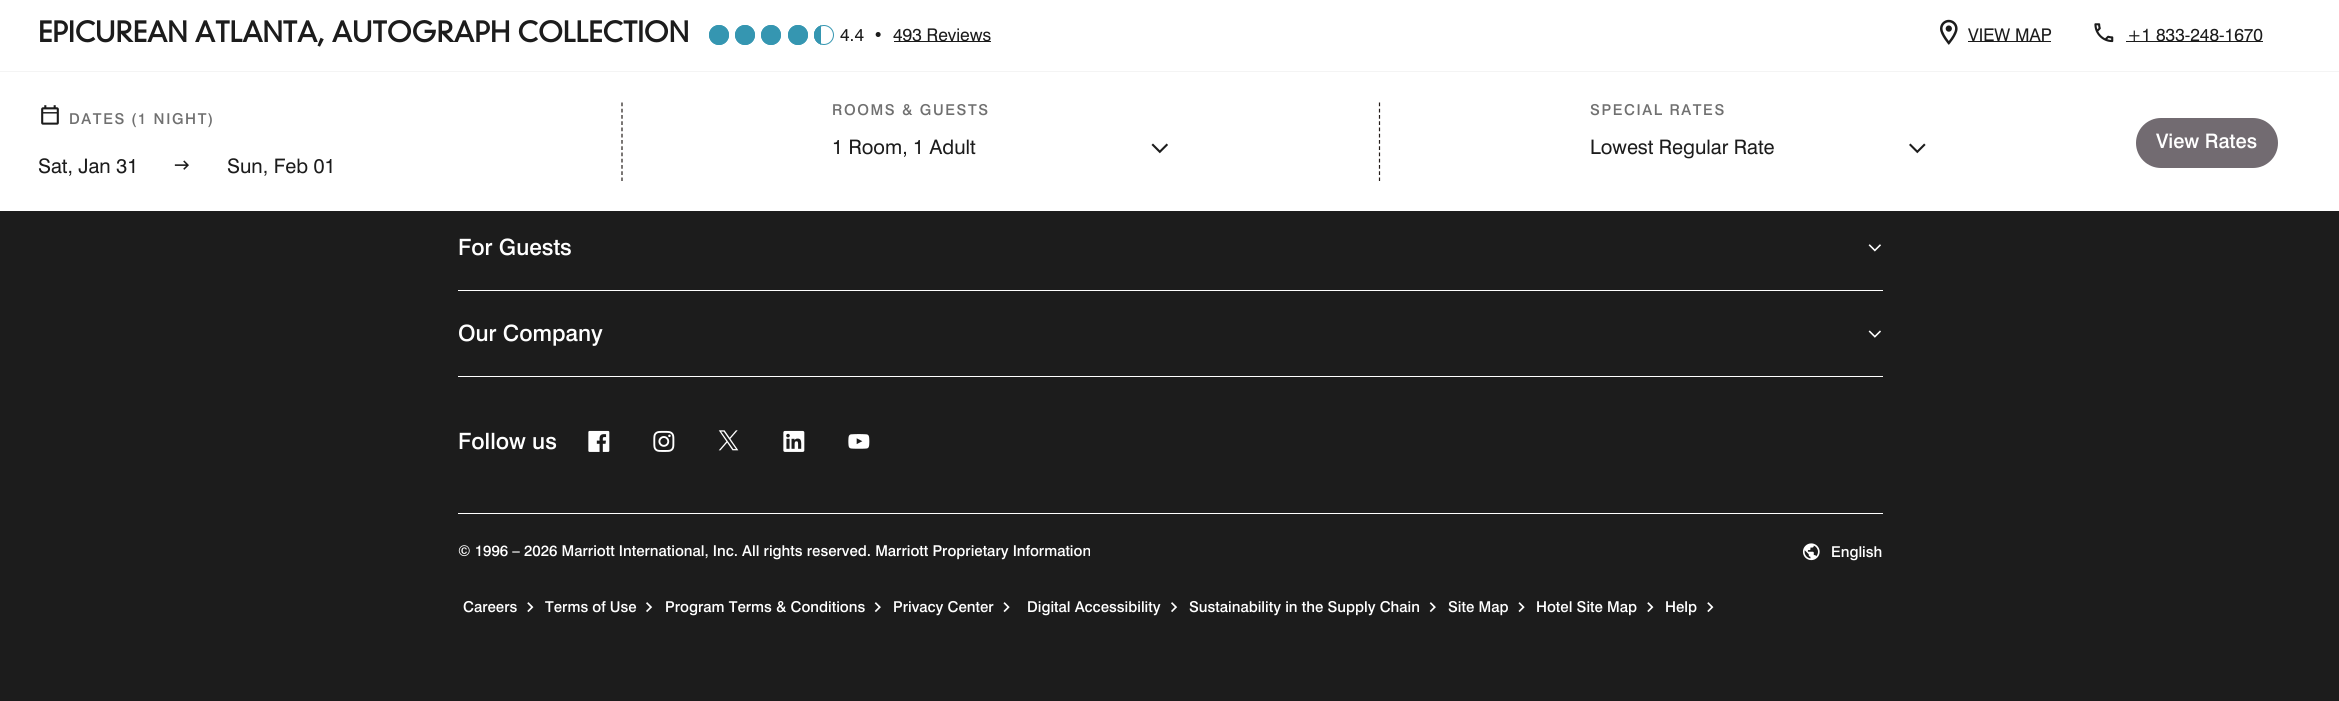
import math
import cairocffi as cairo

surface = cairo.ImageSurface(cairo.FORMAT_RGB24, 2339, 701)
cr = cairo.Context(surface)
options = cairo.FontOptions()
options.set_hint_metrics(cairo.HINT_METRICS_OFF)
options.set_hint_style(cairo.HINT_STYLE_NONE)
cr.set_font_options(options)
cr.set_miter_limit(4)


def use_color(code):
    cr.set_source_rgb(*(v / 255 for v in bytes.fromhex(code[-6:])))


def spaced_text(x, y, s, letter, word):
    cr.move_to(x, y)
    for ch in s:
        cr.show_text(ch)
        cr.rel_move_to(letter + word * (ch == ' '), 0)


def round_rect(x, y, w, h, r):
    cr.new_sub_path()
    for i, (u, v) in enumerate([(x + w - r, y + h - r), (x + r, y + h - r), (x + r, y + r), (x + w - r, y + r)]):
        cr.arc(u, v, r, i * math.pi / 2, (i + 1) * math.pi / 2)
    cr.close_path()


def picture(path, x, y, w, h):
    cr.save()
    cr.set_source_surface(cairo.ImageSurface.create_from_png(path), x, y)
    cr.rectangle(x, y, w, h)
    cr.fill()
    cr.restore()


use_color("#1c1c1c")
cr.paint()
use_color("#ffffff")
cr.rectangle(0, 0, 2339, 211)
cr.fill()
use_color("#f4f4f4")
cr.rectangle(0, 71, 2339, 1)
cr.fill()
cr.select_font_face("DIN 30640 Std", cairo.FONT_SLANT_NORMAL, cairo.FONT_WEIGHT_BOLD)
cr.set_font_size(27.5)
use_color("#1c1c1c")
cr.move_to(38, 42)
cr.show_text("EPICUREAN ATLANTA, AUTOGRAPH COLLECTION")
cr.new_path()
cr.arc(719, 35, 9.5, 0, 2 * math.pi)
use_color("#3596b1")
cr.set_line_width(1)
cr.stroke()
cr.arc(719, 35, 9.5, 0, 2 * math.pi)
cr.fill_preserve()
cr.stroke()
cr.arc(745, 35, 9.5, 0, 2 * math.pi)
cr.stroke()
cr.arc(745, 35, 9.5, 0, 2 * math.pi)
cr.fill_preserve()
cr.stroke()
cr.arc(771, 35, 9.5, 0, 2 * math.pi)
cr.stroke()
cr.arc(771, 35, 9.5, 0, 2 * math.pi)
cr.fill_preserve()
cr.stroke()
cr.arc(798, 35, 9.5, 0, 2 * math.pi)
cr.stroke()
cr.arc(798, 35, 9.5, 0, 2 * math.pi)
cr.fill_preserve()
cr.stroke()
cr.arc(824, 35, 9.5, 0, 2 * math.pi)
cr.stroke()
cr.new_path()
cr.move_to(824, 25)
cr.line_to(821, 25)
cr.line_to(821, 45)
cr.line_to(824, 45)
cr.curve_to(818.5, 45, 814, 40.5, 814, 35)
cr.curve_to(814, 29.5, 818.5, 25, 824, 25)
cr.close_path()
cr.fill()
cr.save()
cr.rectangle(814, 25, 7, 20)
cr.clip()
cr.arc(824, 35, 9.5, 0, 2 * math.pi)
cr.stroke()
cr.restore()
cr.select_font_face("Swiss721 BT")
cr.set_font_size(17.5)
use_color("#1c1c1c")
cr.move_to(840, 41)
cr.show_text("4.4")
cr.move_to(873, 41)
cr.show_text("•")
cr.rectangle(894, 41, 97, 1)
cr.fill()
cr.move_to(893, 41)
cr.show_text("493 Reviews")
picture("img1.png", 1940, 19, 18, 26)
cr.move_to(1968, 41)
cr.show_text("VIEW MAP")
cr.rectangle(1968, 41, 83, 1)
cr.fill()
picture("img2.png", 2094, 23, 20, 20)
cr.rectangle(2126, 41, 137, 1)
cr.fill()
cr.move_to(2127, 41)
cr.show_text("+1 833-248-1670")
picture("img3.png", 41, 105, 18, 20)
cr.select_font_face("Swiss721 BT Medium")
cr.set_font_size(15)
use_color("#707070")
spaced_text(69, 124, "DATES", 1.6, 0)
spaced_text(131, 124, "(1 NIGHT)", 1.6, 0)
cr.select_font_face("Swiss721 BT")
cr.set_font_size(20)
use_color("#1c1c1c")
cr.move_to(38, 173)
cr.show_text("Sat, Jan 31")
picture("img4.png", 174, 160, 15, 10)
cr.move_to(227, 173)
cr.show_text("Sun, Feb 01")
cr.new_path()
cr.move_to(622, 102.5)
cr.line_to(622, 181)
use_color("#231c19")
cr.set_line_width(1.2)
cr.set_dash([3.75, 2.5])
cr.stroke()
cr.select_font_face("Swiss721 BT Medium")
cr.set_font_size(15)
use_color("#707070")
spaced_text(832, 115, "ROOMS & GUESTS", 1.6, 0)
cr.select_font_face("Swiss721 BT")
cr.set_font_size(20)
use_color("#1c1c1c")
cr.move_to(832, 154)
cr.show_text("1 Room, 1 Adult")
picture("img5.png", 1151, 143, 17, 11)
cr.new_path()
cr.move_to(1379.5, 102.5)
cr.line_to(1379.5, 181)
use_color("#231c19")
cr.stroke()
cr.select_font_face("Swiss721 BT Medium")
cr.set_font_size(15)
use_color("#707070")
spaced_text(1590, 115, "SPECIAL RATES", 1.6, 0)
cr.select_font_face("Swiss721 BT")
cr.set_font_size(20)
use_color("#1c1c1c")
cr.move_to(1590, 154)
cr.show_text("Lowest Regular Rate")
picture("img6.png", 1909, 143, 17, 11)
use_color("#726b71")
round_rect(2136, 118, 142, 50, 25)
cr.fill()
cr.select_font_face("Swiss721 BT Medium")
use_color("#ffffff")
cr.move_to(2156, 148)
cr.show_text("View Rates")
cr.rectangle(458, 290, 1425, 1)
cr.fill()
cr.set_font_size(22.5)
cr.move_to(458, 255)
cr.show_text("For Guests")
picture("img7.png", 1868, 244, 13, 8)
cr.rectangle(458, 376, 1425, 1)
cr.fill()
cr.move_to(458, 341)
cr.show_text("Our Company")
picture("img8.png", 1868, 330, 13, 8)
cr.move_to(458, 449)
cr.show_text("Follow us")
picture("img9.png", 588, 430, 22, 22)
picture("img10.png", 653, 430, 22, 22)
picture("img11.png", 718, 430, 21, 21)
picture("img12.png", 783, 430, 22, 22)
picture("img13.png", 848, 434, 22, 15)
cr.rectangle(458, 513, 1425, 1)
cr.fill()
cr.set_font_size(15)
cr.move_to(458, 556)
cr.show_text("© 1996 – 2026 Marriott International, Inc. All rights reserved. Marriott Proprietary Information")
picture("img14.png", 1802, 543, 18, 18)
cr.move_to(1831, 557)
cr.show_text("English")
cr.move_to(463, 612)
cr.show_text("Careers")
picture("img15.png", 527, 602, 7, 11)
cr.move_to(545, 612)
cr.show_text("Terms of Use")
picture("img16.png", 646, 602, 7, 11)
cr.move_to(665, 612)
cr.show_text("Program Terms & Conditions")
picture("img17.png", 874, 602, 7, 11)
cr.move_to(893, 612)
cr.show_text("Privacy Center")
picture("img18.png", 1003, 602, 7, 11)
cr.move_to(1027, 612)
cr.show_text("Digital Accessibility")
picture("img16.png", 1171, 602, 7, 11)
cr.move_to(1189, 612)
cr.show_text("Sustainability in the Supply Chain")
picture("img17.png", 1429, 602, 7, 11)
cr.move_to(1448, 612)
cr.show_text("Site Map")
picture("img18.png", 1518, 602, 7, 11)
cr.move_to(1536, 612)
cr.show_text("Hotel Site Map")
picture("img15.png", 1647, 602, 7, 11)
cr.move_to(1665, 612)
cr.show_text("Help")
picture("img15.png", 1707, 602, 7, 11)
surface.write_to_png("result.png")
